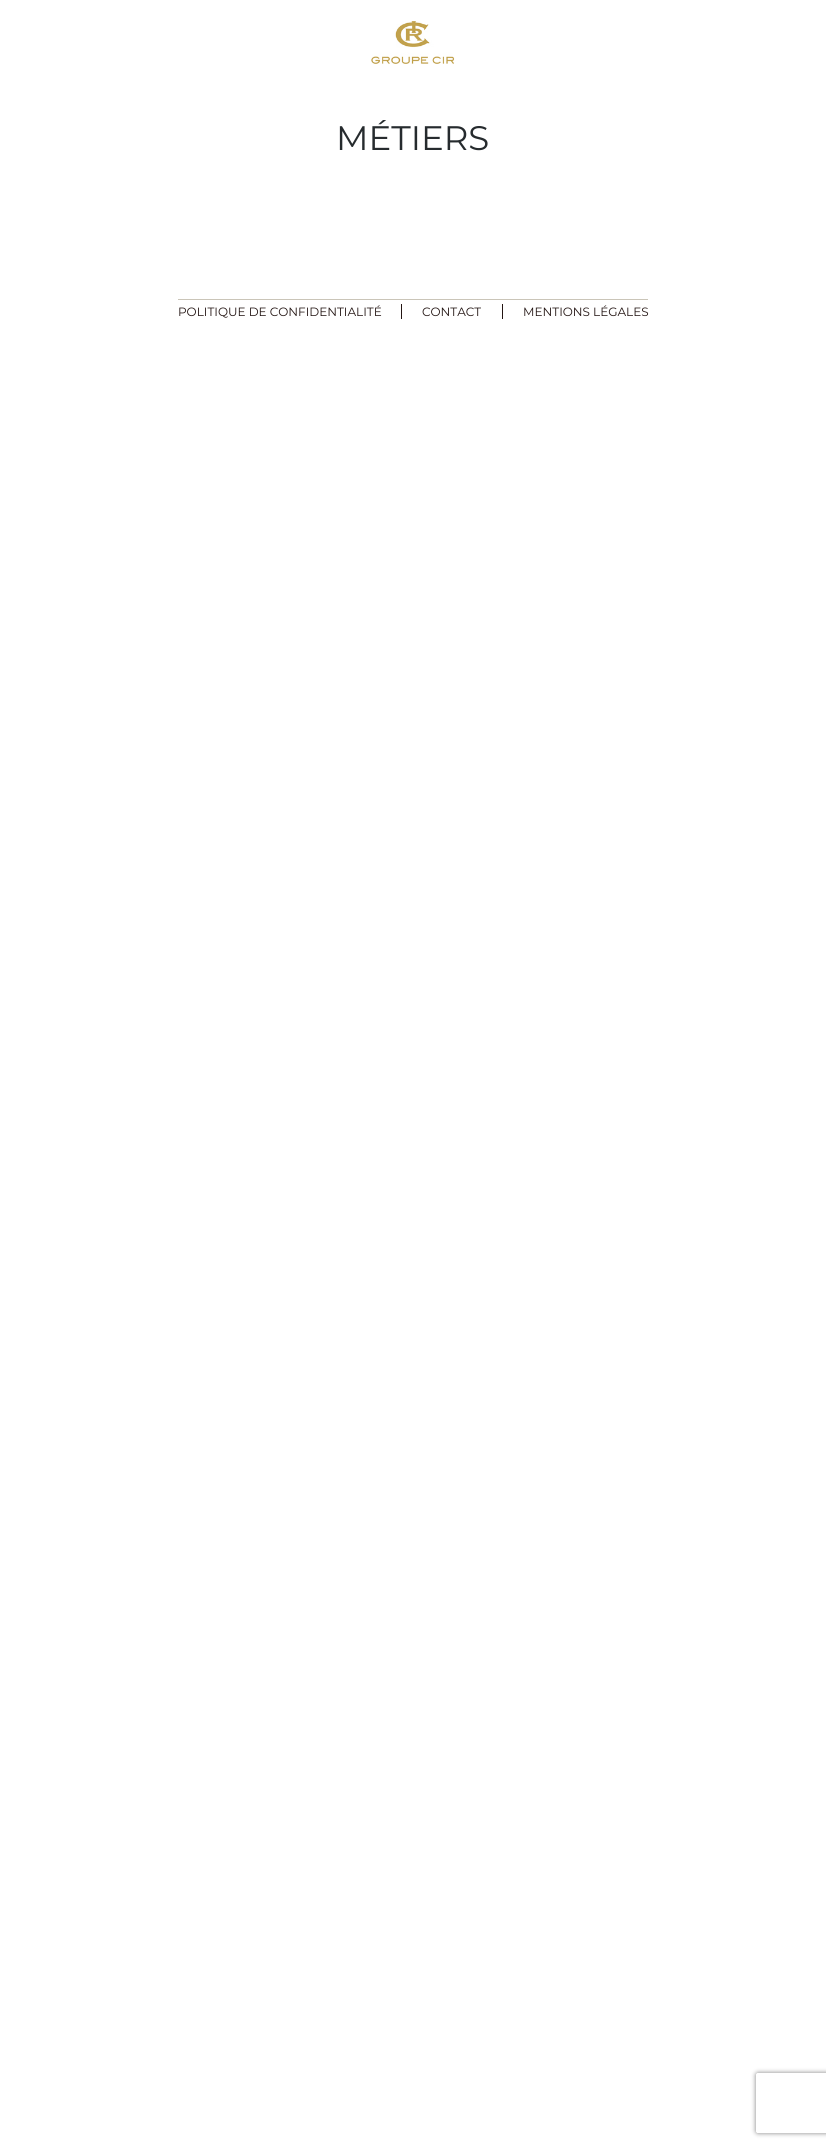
import math
import cairocffi as cairo

surface = cairo.ImageSurface(cairo.FORMAT_RGB24, 826, 2147)
cr = cairo.Context(surface)
options = cairo.FontOptions()
options.set_hint_metrics(cairo.HINT_METRICS_OFF)
options.set_hint_style(cairo.HINT_STYLE_NONE)
cr.set_font_options(options)
cr.set_miter_limit(4)


def use_color(code):
    cr.set_source_rgb(*(v / 255 for v in bytes.fromhex(code[-6:])))


def round_rect(x, y, w, h, r):
    cr.new_sub_path()
    for i, (u, v) in enumerate([(x + w - r, y + h - r), (x + r, y + h - r), (x + r, y + r), (x + w - r, y + r)]):
        cr.arc(u, v, r, i * math.pi / 2, (i + 1) * math.pi / 2)
    cr.close_path()


def shadow(x, y, w, h, r, blur, alpha):
    cr.push_group_with_content(cairo.CONTENT_ALPHA)
    cr.set_operator(cairo.OPERATOR_SOURCE)
    for i in range(15, -16, -2):
        e = blur * i / 6
        if min(w, h) + 2 * e > 0:
            cr.set_source_rgba(0, 0, 0, alpha * math.erfc((i - 1) / 8.5) / 2)
            round_rect(x - e, y - e, w + 2 * e, h + 2 * e, max(0, min(r + e + blur * .6, min(w, h) / 2 + e)))
            cr.fill()
    cr.mask(cr.pop_group())


def picture(path, x, y, w, h):
    cr.save()
    cr.set_source_surface(cairo.ImageSurface.create_from_png(path), x, y)
    cr.rectangle(x, y, w, h)
    cr.fill()
    cr.restore()


use_color("#ffffff")
cr.paint()
picture("img1.png", 371, 21, 84, 43)
cr.select_font_face("Montserrat")
cr.set_font_size(34)
use_color("#262b2e")
cr.move_to(336, 150)
cr.show_text("MÉTIERS")
use_color("#cac5b8")
cr.rectangle(178, 299, 470, 1)
cr.fill()
cr.set_font_size(12)
use_color("#231513")
cr.move_to(178, 316)
cr.show_text("POLITIQUE DE CONFIDENTIALITÉ")
cr.rectangle(401, 304, 1, 15)
cr.fill()
cr.move_to(422, 316)
cr.show_text("CONTACT")
cr.rectangle(502, 304, 1, 15)
cr.fill()
cr.move_to(523, 316)
cr.show_text("MENTIONS LÉGALES")
cr.save()
cr.set_fill_rule(cairo.FILL_RULE_EVEN_ODD)
cr.new_path()
cr.move_to(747, 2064)
cr.line_to(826, 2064)
cr.line_to(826, 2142)
cr.line_to(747, 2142)
cr.close_path()
cr.move_to(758, 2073)
cr.line_to(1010, 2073)
cr.curve_to(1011, 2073, 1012, 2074, 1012, 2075)
cr.line_to(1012, 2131)
cr.curve_to(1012, 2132, 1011, 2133, 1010, 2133)
cr.line_to(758, 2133)
cr.curve_to(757, 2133, 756, 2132, 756, 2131)
cr.line_to(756, 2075)
cr.curve_to(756, 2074, 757, 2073, 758, 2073)
cr.close_path()
cr.clip()
use_color("#808080")
shadow(756, 2073, 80, 60, 2, 2.5, 1)
cr.restore()
surface.write_to_png("result.png")
